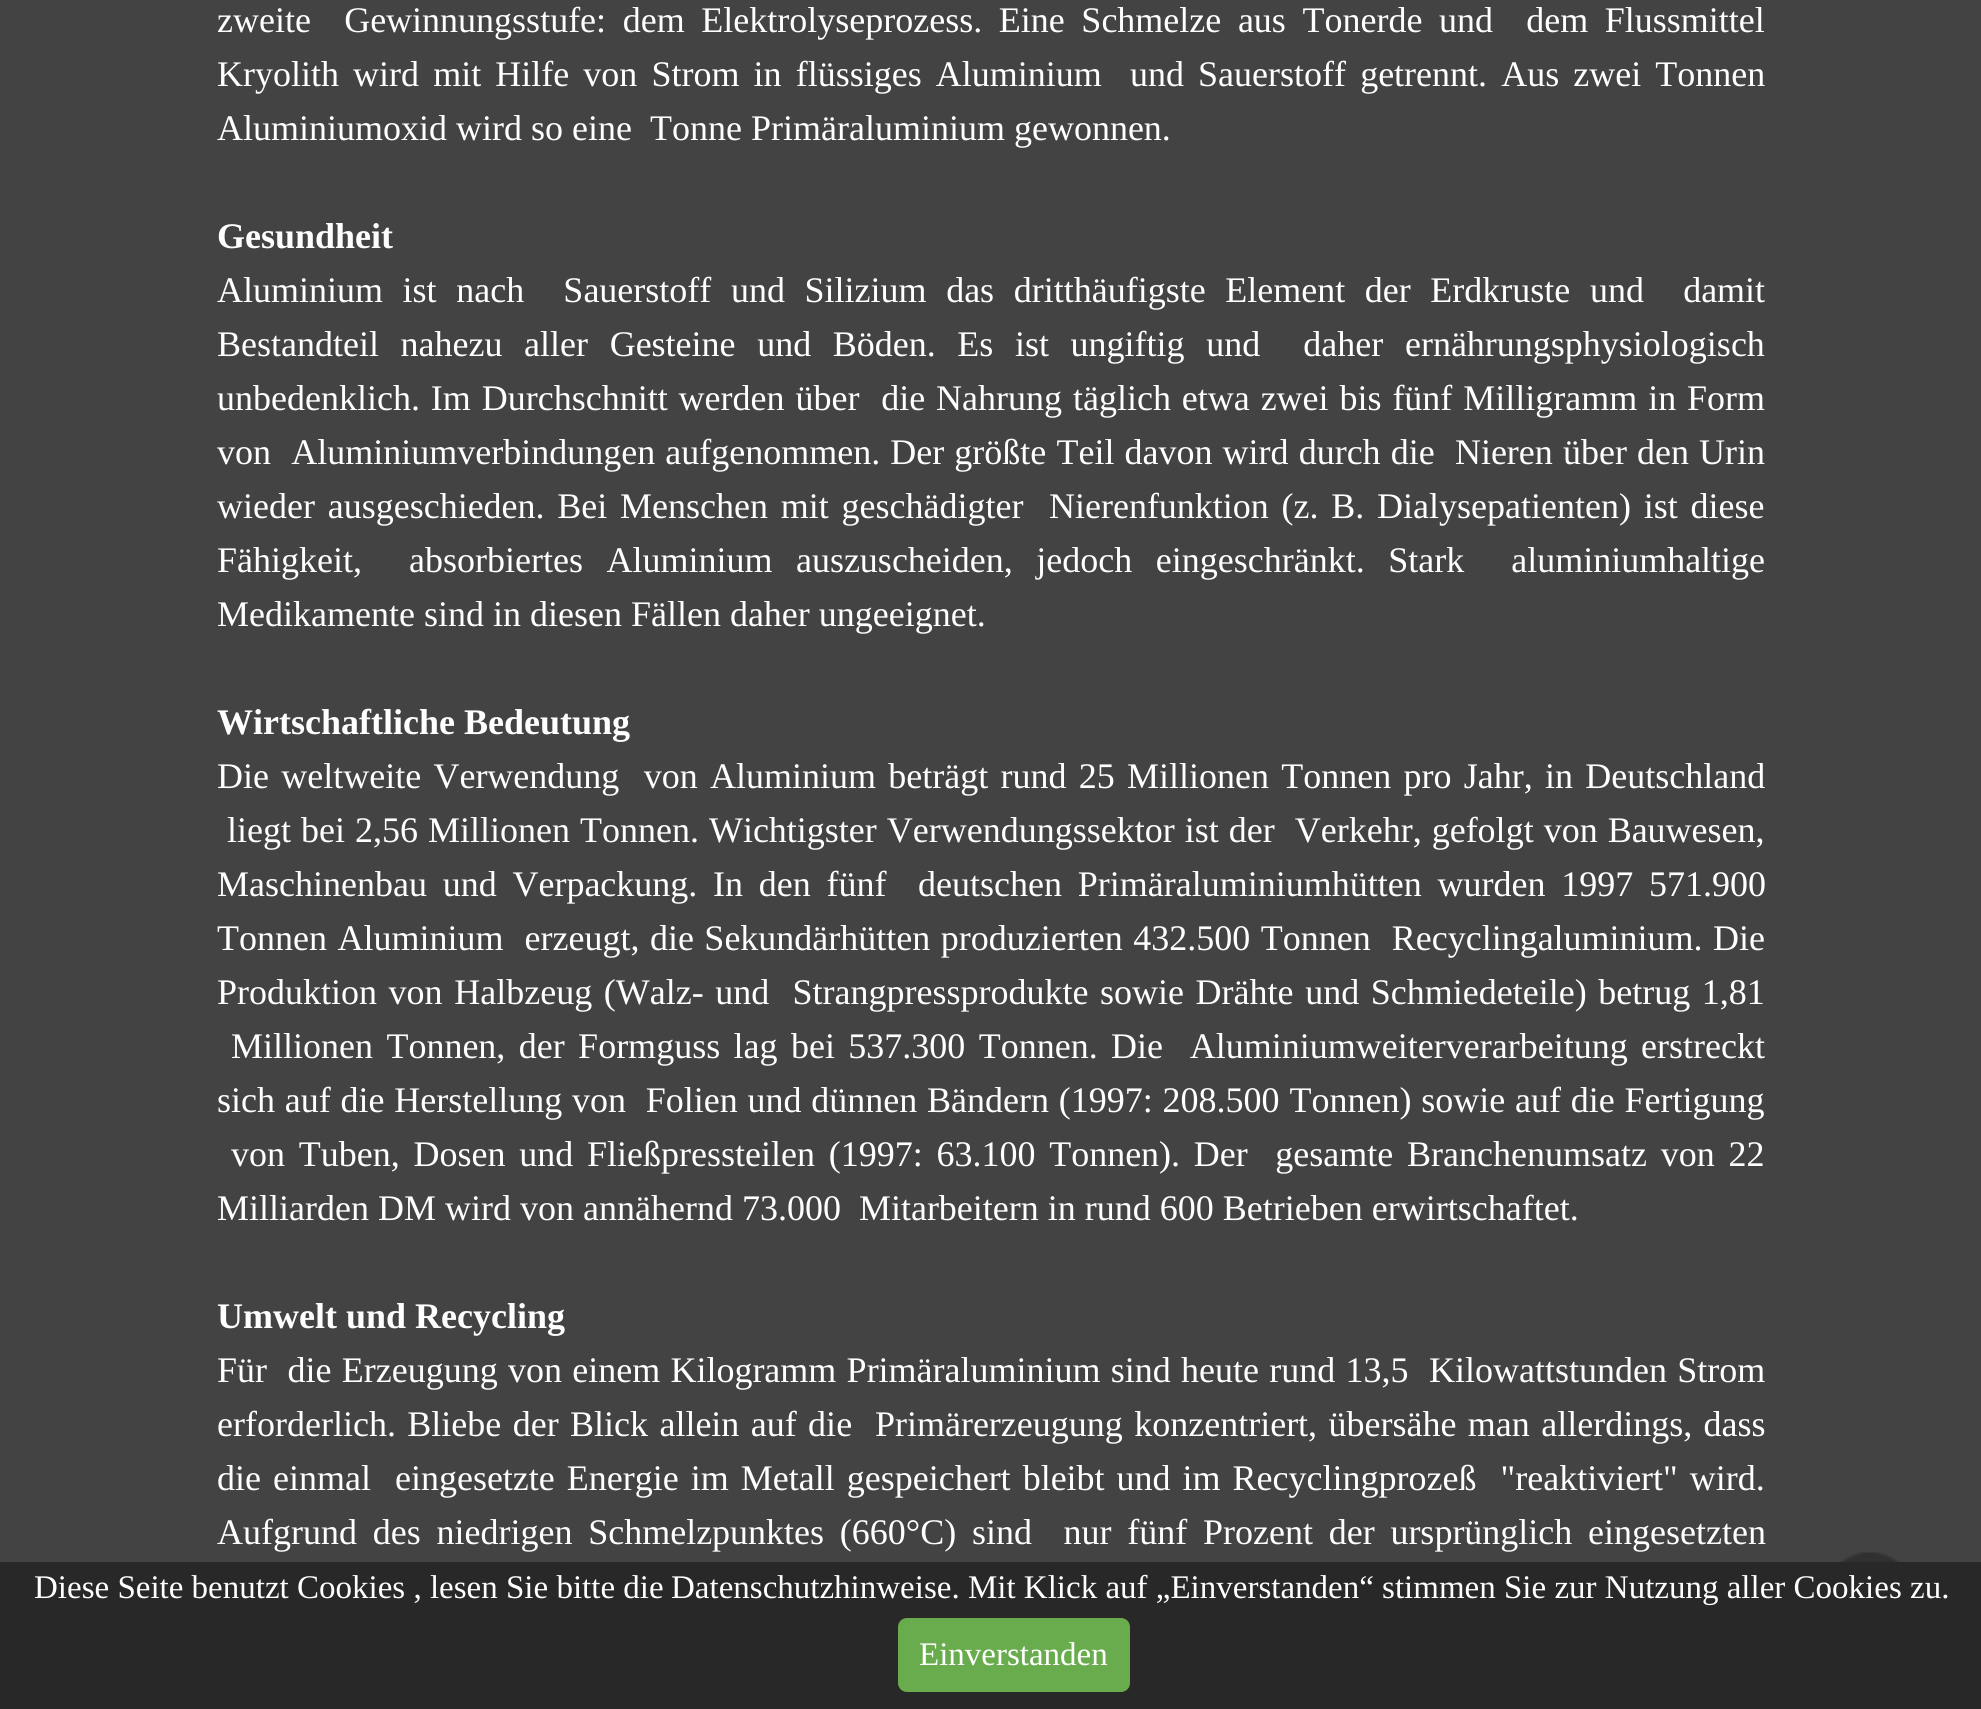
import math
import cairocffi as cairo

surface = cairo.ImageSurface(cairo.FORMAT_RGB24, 1981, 1709)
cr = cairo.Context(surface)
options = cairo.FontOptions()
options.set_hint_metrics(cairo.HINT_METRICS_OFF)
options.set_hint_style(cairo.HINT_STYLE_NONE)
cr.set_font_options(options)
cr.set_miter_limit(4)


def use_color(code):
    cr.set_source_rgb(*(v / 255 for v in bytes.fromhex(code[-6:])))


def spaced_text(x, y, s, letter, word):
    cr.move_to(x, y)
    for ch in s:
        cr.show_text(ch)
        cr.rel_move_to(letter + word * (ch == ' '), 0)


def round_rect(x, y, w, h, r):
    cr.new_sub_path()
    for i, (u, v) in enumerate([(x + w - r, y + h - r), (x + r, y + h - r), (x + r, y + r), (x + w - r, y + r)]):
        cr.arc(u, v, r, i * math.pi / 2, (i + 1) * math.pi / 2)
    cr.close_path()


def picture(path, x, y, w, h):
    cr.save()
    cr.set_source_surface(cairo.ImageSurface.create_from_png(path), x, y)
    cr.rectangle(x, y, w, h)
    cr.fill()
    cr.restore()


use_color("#434343")
cr.paint()
cr.select_font_face("Liberation Serif")
cr.set_font_size(36)
use_color("#ffffff")
spaced_text(217, 32, "zweite  Gewinnungsstufe: dem Elektrolyseprozess. Eine Schmelze aus Tonerde und  dem Flussmittel", 0, 7.6)
spaced_text(217, 86, "Kryolith wird mit Hilfe von Strom in flüssiges Aluminium  und Sauerstoff getrennt. Aus zwei Tonnen", 0, 5.1)
cr.move_to(217, 140)
cr.show_text("Aluminiumoxid wird so eine  Tonne Primäraluminium gewonnen.")
cr.select_font_face("Liberation Serif", cairo.FONT_SLANT_NORMAL, cairo.FONT_WEIGHT_BOLD)
cr.move_to(217, 248)
cr.show_text("Gesundheit")
cr.select_font_face("Liberation Serif")
spaced_text(217, 302, "Aluminium ist nach  Sauerstoff und Silizium das dritthäufigste Element der Erdkruste und  damit", 0, 10.6)
spaced_text(217, 356, "Bestandteil nahezu aller Gesteine und Böden. Es ist ungiftig und  daher ernährungsphysiologisch", 0, 12.6)
spaced_text(217, 410, "unbedenklich. Im Durchschnitt werden über  die Nahrung täglich etwa zwei bis fünf Milligramm in Form", 0, 1.9)
spaced_text(217, 464, "von  Aluminiumverbindungen aufgenommen. Der größte Teil davon wird durch die  Nieren über den Urin", 0, 1.1)
spaced_text(217, 518, "wieder ausgeschieden. Bei Menschen mit geschädigter  Nierenfunktion (z. B. Dialysepatienten) ist diese", 0, 3.75)
spaced_text(217, 572, "Fähigkeit,  absorbiertes Aluminium auszuscheiden, jedoch eingeschränkt. Stark  aluminiumhaltige", 0, 14.5)
cr.move_to(217, 626)
cr.show_text("Medikamente sind in diesen Fällen daher ungeeignet.")
cr.select_font_face("Liberation Serif", cairo.FONT_SLANT_NORMAL, cairo.FONT_WEIGHT_BOLD)
cr.move_to(217, 734)
cr.show_text("Wirtschaftliche Bedeutung")
cr.select_font_face("Liberation Serif")
spaced_text(217, 788, "Die weltweite Verwendung  von Aluminium beträgt rund 25 Millionen Tonnen pro Jahr, in Deutschland", 0, 3.25)
spaced_text(227, 842, "liegt bei 2,56 Millionen Tonnen. Wichtigster Verwendungssektor ist der  Verkehr, gefolgt von Bauwesen,", 0, 1)
spaced_text(217, 896, "Maschinenbau und Verpackung. In den fünf  deutschen Primäraluminiumhütten wurden 1997 571.900", 0, 6.75)
spaced_text(217, 950, "Tonnen Aluminium  erzeugt, die Sekundärhütten produzierten 432.500 Tonnen  Recyclingaluminium. Die", 0, 1.5)
spaced_text(217, 1004, "Produktion von Halbzeug (Walz- und  Strangpressprodukte sowie Drähte und Schmiedeteile) betrug 1,81", 0, 2.6)
spaced_text(231, 1058, "Millionen Tonnen, der Formguss lag bei 537.300 Tonnen. Die  Aluminiumweiterverarbeitung erstreckt", 0, 4.4)
spaced_text(217, 1112, "sich auf die Herstellung von  Folien und dünnen Bändern (1997: 208.500 Tonnen) sowie auf die Fertigung", 0, 0.8)
spaced_text(231, 1166, "von Tuben, Dosen und Fließpressteilen (1997: 63.100 Tonnen). Der  gesamte Branchenumsatz von 22", 0, 4.75)
cr.move_to(217, 1220)
cr.show_text("Milliarden DM wird von annähernd 73.000  Mitarbeitern in rund 600 Betrieben erwirtschaftet.")
cr.select_font_face("Liberation Serif", cairo.FONT_SLANT_NORMAL, cairo.FONT_WEIGHT_BOLD)
cr.move_to(217, 1328)
cr.show_text("Umwelt und Recycling")
cr.select_font_face("Liberation Serif")
spaced_text(217, 1382, "Für  die Erzeugung von einem Kilogramm Primäraluminium sind heute rund 13,5  Kilowattstunden Strom", 0, 1.25)
spaced_text(217, 1436, "erforderlich. Bliebe der Blick allein auf die  Primärerzeugung konzentriert, übersähe man allerdings, dass", 0, 2.4)
spaced_text(217, 1490, "die einmal  eingesetzte Energie im Metall gespeichert bleibt und im Recyclingprozeß  \"reaktiviert\" wird.", 0, 3)
spaced_text(217, 1544, "Aufgrund des niedrigen Schmelzpunktes (660°C) sind  nur fünf Prozent der ursprünglich eingesetzten", 0, 6.75)
picture("img1.png", 1840, 1552, 60, 10)
use_color("#282828")
cr.rectangle(0, 1562, 1981, 147)
cr.fill()
cr.set_font_size(33)
use_color("#ffffff")
cr.move_to(34, 1598)
cr.show_text("Diese Seite benutzt Cookies , lesen Sie bitte die")
cr.move_to(671, 1598)
cr.show_text("Datenschutzhinweise. Mit Klick auf „Einverstanden“ stimmen Sie zur Nutzung aller Cookies zu.")
use_color("#69ac4d")
round_rect(898, 1618, 232, 74, 9)
cr.fill()
use_color("#ffffff")
cr.move_to(919, 1665)
cr.show_text("Einverstanden")
surface.write_to_png("result.png")
